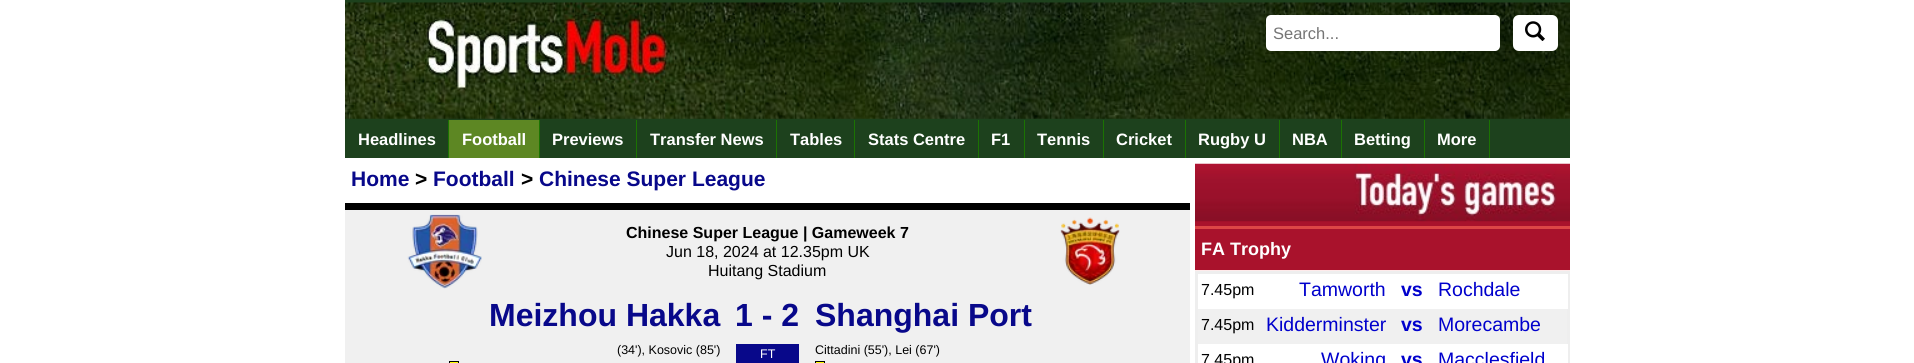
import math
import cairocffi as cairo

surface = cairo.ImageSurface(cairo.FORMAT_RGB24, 1914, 363)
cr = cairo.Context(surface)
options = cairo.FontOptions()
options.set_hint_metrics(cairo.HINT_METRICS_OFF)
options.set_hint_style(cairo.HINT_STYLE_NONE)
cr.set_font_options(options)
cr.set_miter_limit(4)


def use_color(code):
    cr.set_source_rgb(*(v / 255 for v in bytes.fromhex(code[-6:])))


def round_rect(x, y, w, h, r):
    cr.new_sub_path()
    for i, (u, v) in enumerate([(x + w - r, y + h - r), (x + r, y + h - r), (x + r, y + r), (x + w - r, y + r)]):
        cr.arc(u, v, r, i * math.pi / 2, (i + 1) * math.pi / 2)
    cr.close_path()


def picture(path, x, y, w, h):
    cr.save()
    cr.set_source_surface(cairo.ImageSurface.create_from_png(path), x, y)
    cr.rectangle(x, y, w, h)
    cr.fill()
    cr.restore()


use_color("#ffffff")
cr.paint()
use_color("#1d411d")
cr.rectangle(345, 0, 1225, 158)
cr.fill()
picture("img1.png", 345, 2, 1225, 117)
use_color("#ffffff")
round_rect(1266, 15, 234, 36, 5)
cr.fill()
cr.select_font_face("Liberation Sans")
cr.set_font_size(16.5)
use_color("#757575")
cr.move_to(1273, 39)
cr.show_text("Search...")
use_color("#ffffff")
round_rect(1513, 15, 45, 36, 6)
cr.fill()
picture("img2.png", 1525, 21, 20, 20)
use_color("#1b7302")
cr.rectangle(448, 120, 1, 38)
cr.fill()
cr.select_font_face("Liberation Sans", cairo.FONT_SLANT_NORMAL, cairo.FONT_WEIGHT_BOLD)
use_color("#ffffff")
cr.move_to(358, 145)
cr.show_text("Headlines")
use_color("#5d8723")
cr.rectangle(449, 120, 90, 38)
cr.fill()
use_color("#1b7302")
cr.rectangle(539, 120, 1, 38)
cr.fill()
use_color("#ffffff")
cr.move_to(462, 145)
cr.show_text("Football")
use_color("#1b7302")
cr.rectangle(636, 120, 1, 38)
cr.fill()
use_color("#ffffff")
cr.move_to(552, 145)
cr.show_text("Previews")
use_color("#1b7302")
cr.rectangle(776, 120, 1, 38)
cr.fill()
use_color("#ffffff")
cr.move_to(650, 145)
cr.show_text("Transfer News")
use_color("#1b7302")
cr.rectangle(854, 120, 1, 38)
cr.fill()
use_color("#ffffff")
cr.move_to(790, 145)
cr.show_text("Tables")
use_color("#1b7302")
cr.rectangle(978, 120, 1, 38)
cr.fill()
use_color("#ffffff")
cr.move_to(868, 145)
cr.show_text("Stats Centre")
use_color("#1b7302")
cr.rectangle(1024, 120, 1, 38)
cr.fill()
use_color("#ffffff")
cr.move_to(991, 145)
cr.show_text("F1")
use_color("#1b7302")
cr.rectangle(1103, 120, 1, 38)
cr.fill()
use_color("#ffffff")
cr.move_to(1037, 145)
cr.show_text("Tennis")
use_color("#1b7302")
cr.rectangle(1185, 120, 1, 38)
cr.fill()
use_color("#ffffff")
cr.move_to(1116, 145)
cr.show_text("Cricket")
use_color("#1b7302")
cr.rectangle(1279, 120, 1, 38)
cr.fill()
use_color("#ffffff")
cr.move_to(1198, 145)
cr.show_text("Rugby U")
use_color("#1b7302")
cr.rectangle(1341, 120, 1, 38)
cr.fill()
use_color("#ffffff")
cr.move_to(1292, 145)
cr.show_text("NBA")
use_color("#1b7302")
cr.rectangle(1424, 120, 1, 38)
cr.fill()
use_color("#ffffff")
cr.move_to(1354, 145)
cr.show_text("Betting")
use_color("#1b7302")
cr.rectangle(1489, 120, 1, 38)
cr.fill()
use_color("#ffffff")
cr.move_to(1437, 145)
cr.show_text("More")
cr.set_font_size(21)
use_color("#08088a")
cr.move_to(351, 186)
cr.show_text("Home")
use_color("#000000")
cr.move_to(415, 186)
cr.show_text(">")
use_color("#08088a")
cr.move_to(433, 186)
cr.show_text("Football")
use_color("#000000")
cr.move_to(521, 186)
cr.show_text(">")
use_color("#08088a")
cr.move_to(539, 186)
cr.show_text("Chinese Super League")
use_color("#f0f0f0")
cr.rectangle(345, 210, 845, 153)
cr.fill()
use_color("#000000")
cr.rectangle(345, 203, 845, 7)
cr.fill()
picture("img3.png", 407, 214, 75, 75)
cr.set_font_size(16)
cr.move_to(626, 238)
cr.show_text("Chinese Super League | Gameweek 7")
cr.select_font_face("Liberation Sans")
cr.move_to(666, 257)
cr.show_text("Jun 18, 2024 at 12.35pm UK")
cr.move_to(708, 276)
cr.show_text("Huitang Stadium")
picture("img4.png", 1060, 217, 60, 68)
cr.save()
cr.rectangle(345, 288, 375, 52)
cr.clip()
cr.select_font_face("Liberation Sans", cairo.FONT_SLANT_NORMAL, cairo.FONT_WEIGHT_BOLD)
cr.set_font_size(32)
use_color("#08088a")
cr.move_to(489, 326)
cr.show_text("Meizhou Hakka")
cr.restore()
cr.select_font_face("Liberation Sans", cairo.FONT_SLANT_NORMAL, cairo.FONT_WEIGHT_BOLD)
cr.set_font_size(32)
use_color("#08088a")
cr.move_to(735, 326)
cr.show_text("1 - 2")
cr.move_to(815, 326)
cr.show_text("Shanghai Port")
cr.select_font_face("Liberation Sans")
cr.set_font_size(12.5)
use_color("#000000")
cr.move_to(617, 354)
cr.show_text("(34'), Kosovic (85')")
use_color("#ffff00")
cr.rectangle(449.5, 361.5, 9, 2)
cr.fill_preserve()
use_color("#000000")
cr.set_line_width(1)
cr.stroke()
use_color("#08088a")
cr.rectangle(736, 344, 63, 19)
cr.fill()
use_color("#ffffff")
cr.move_to(760, 358)
cr.show_text("FT")
use_color("#000000")
cr.move_to(815, 354)
cr.show_text("Cittadini (55'), Lei (67')")
use_color("#ffff00")
cr.rectangle(815.5, 361.5, 9, 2)
cr.fill_preserve()
use_color("#000000")
cr.stroke()
use_color("#a9122c")
cr.rectangle(1195, 221, 375, 5)
cr.fill()
use_color("#dc4646")
cr.rectangle(1195, 226, 375, 3)
cr.fill()
picture("img5.png", 1195, 163, 375, 59)
use_color("#a9122c")
cr.rectangle(1195, 229, 375, 41)
cr.fill()
use_color("#ffeaea")
cr.rectangle(1195, 270, 375, 1)
cr.fill()
cr.select_font_face("Liberation Sans", cairo.FONT_SLANT_NORMAL, cairo.FONT_WEIGHT_BOLD)
cr.set_font_size(18)
use_color("#ffffff")
cr.move_to(1201, 255)
cr.show_text("FA Trophy")
cr.rectangle(1196.5, 272.5, 372, 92)
use_color("#eeeeee")
cr.set_line_width(3)
cr.stroke()
use_color("#ffffff")
cr.rectangle(1567, 274, 1, 35)
cr.fill()
cr.select_font_face("Liberation Sans")
cr.set_font_size(16)
use_color("#000000")
cr.move_to(1201, 295)
cr.show_text("7.45pm")
cr.set_font_size(19.5)
use_color("#0000cc")
cr.move_to(1299, 296)
cr.show_text("Tamworth")
cr.select_font_face("Liberation Sans", cairo.FONT_SLANT_NORMAL, cairo.FONT_WEIGHT_BOLD)
cr.move_to(1401, 296)
cr.show_text("vs")
cr.select_font_face("Liberation Sans")
cr.move_to(1438, 296)
cr.show_text("Rochdale")
use_color("#f0f0f0")
cr.rectangle(1198, 309, 369, 35)
cr.fill()
cr.set_font_size(16)
use_color("#000000")
cr.move_to(1201, 330)
cr.show_text("7.45pm")
cr.set_font_size(19.5)
use_color("#0000cc")
cr.move_to(1266, 331)
cr.show_text("Kidderminster")
cr.select_font_face("Liberation Sans", cairo.FONT_SLANT_NORMAL, cairo.FONT_WEIGHT_BOLD)
cr.move_to(1401, 331)
cr.show_text("vs")
cr.select_font_face("Liberation Sans")
cr.move_to(1438, 331)
cr.show_text("Morecambe")
use_color("#ffffff")
cr.rectangle(1567, 344, 1, 19)
cr.fill()
cr.set_font_size(16)
use_color("#000000")
cr.move_to(1201, 365)
cr.show_text("7.45pm")
cr.set_font_size(19.5)
use_color("#0000cc")
cr.move_to(1321, 366)
cr.show_text("Woking")
cr.select_font_face("Liberation Sans", cairo.FONT_SLANT_NORMAL, cairo.FONT_WEIGHT_BOLD)
cr.move_to(1401, 366)
cr.show_text("vs")
cr.select_font_face("Liberation Sans")
cr.move_to(1438, 366)
cr.show_text("Macclesfield")
surface.write_to_png("result.png")
